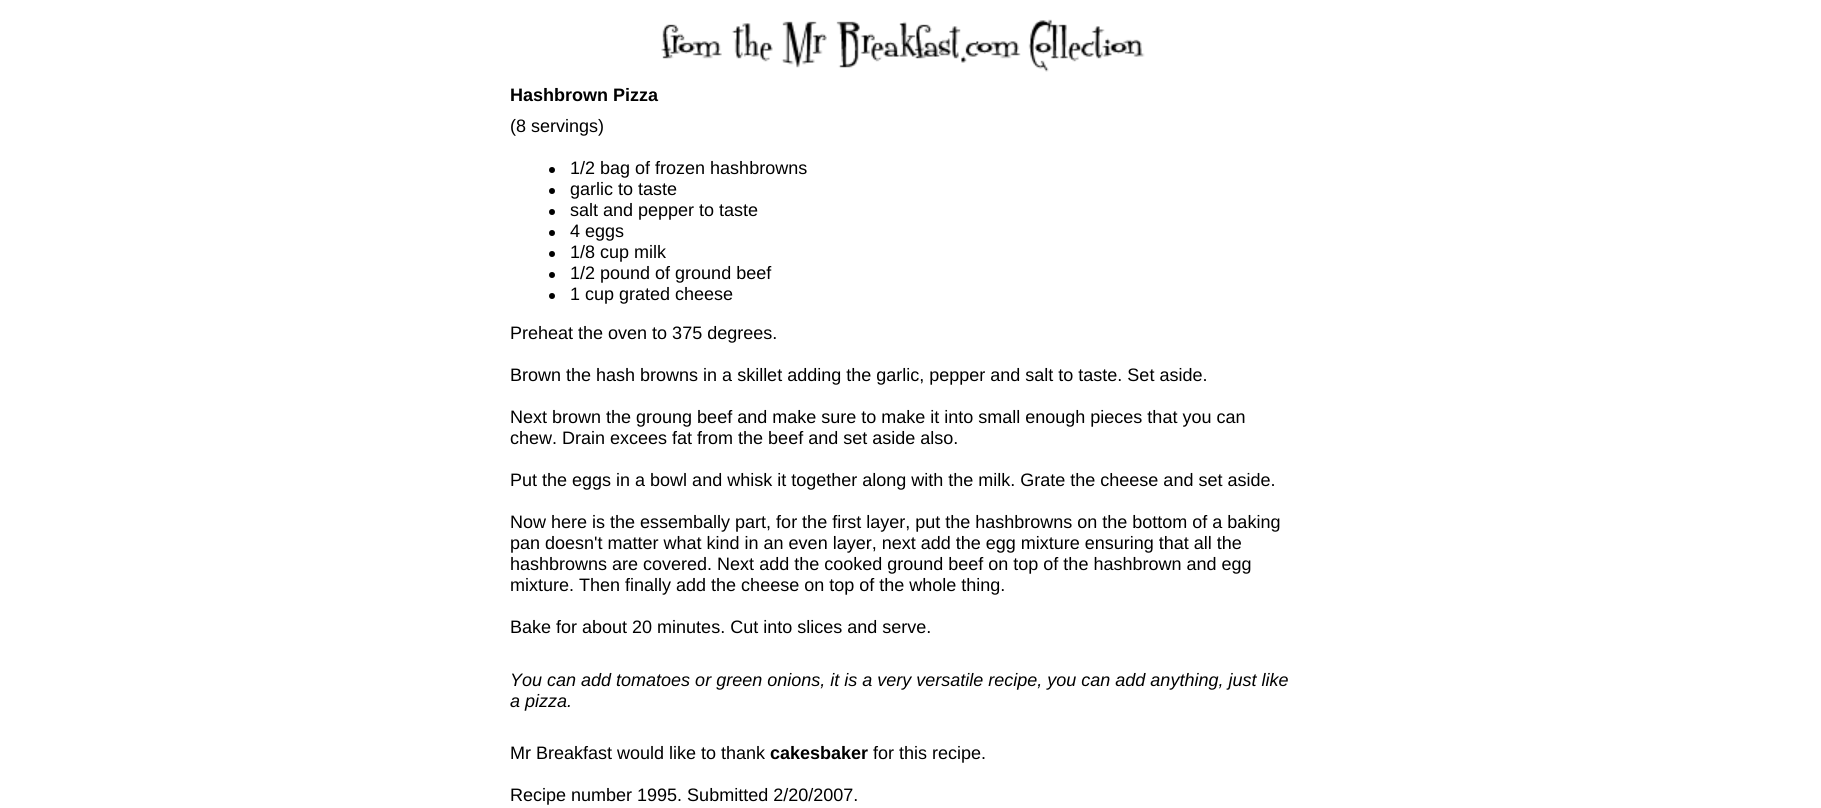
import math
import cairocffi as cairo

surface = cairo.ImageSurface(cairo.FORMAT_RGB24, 1821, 808)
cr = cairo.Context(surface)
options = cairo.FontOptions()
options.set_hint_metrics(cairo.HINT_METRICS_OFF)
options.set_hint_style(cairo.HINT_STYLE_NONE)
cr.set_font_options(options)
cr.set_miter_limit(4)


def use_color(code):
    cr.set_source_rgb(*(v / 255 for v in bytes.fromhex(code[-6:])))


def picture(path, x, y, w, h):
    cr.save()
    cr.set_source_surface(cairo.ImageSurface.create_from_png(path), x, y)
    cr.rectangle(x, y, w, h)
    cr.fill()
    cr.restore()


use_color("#ffffff")
cr.paint()
picture("img1.png", 661, 19, 484, 53)
cr.select_font_face("Liberation Sans", cairo.FONT_SLANT_NORMAL, cairo.FONT_WEIGHT_BOLD)
cr.set_font_size(18)
use_color("#000000")
cr.move_to(510, 101)
cr.show_text("Hashbrown Pizza")
cr.select_font_face("Liberation Sans")
cr.move_to(510, 132)
cr.show_text("(8 servings)")
cr.new_path()
cr.arc(552, 170, 3, 0, 2 * math.pi)
cr.fill()
cr.move_to(570, 174)
cr.show_text("1/2 bag of frozen hashbrowns")
cr.new_path()
cr.arc(552, 191, 3, 0, 2 * math.pi)
cr.fill()
cr.move_to(570, 195)
cr.show_text("garlic to taste")
cr.new_path()
cr.arc(552, 212, 3, 0, 2 * math.pi)
cr.fill()
cr.move_to(570, 216)
cr.show_text("salt and pepper to taste")
cr.new_path()
cr.arc(552, 233, 3, 0, 2 * math.pi)
cr.fill()
cr.move_to(570, 237)
cr.show_text("4 eggs")
cr.new_path()
cr.arc(552, 254, 3, 0, 2 * math.pi)
cr.fill()
cr.move_to(570, 258)
cr.show_text("1/8 cup milk")
cr.new_path()
cr.arc(552, 275, 3, 0, 2 * math.pi)
cr.fill()
cr.move_to(570, 279)
cr.show_text("1/2 pound of ground beef")
cr.new_path()
cr.arc(552, 296, 3, 0, 2 * math.pi)
cr.fill()
cr.move_to(570, 300)
cr.show_text("1 cup grated cheese")
cr.move_to(510, 339)
cr.show_text("Preheat the oven to 375 degrees.")
cr.move_to(510, 381)
cr.show_text("Brown the hash browns in a skillet adding the garlic, pepper and salt to taste. Set aside.")
cr.move_to(510, 423)
cr.show_text("Next brown the groung beef and make sure to make it into small enough pieces that you can")
cr.move_to(510, 444)
cr.show_text("chew. Drain excees fat from the beef and set aside also.")
cr.move_to(510, 486)
cr.show_text("Put the eggs in a bowl and whisk it together along with the milk. Grate the cheese and set aside.")
cr.move_to(510, 528)
cr.show_text("Now here is the essembally part, for the first layer, put the hashbrowns on the bottom of a baking")
cr.move_to(510, 549)
cr.show_text("pan doesn't matter what kind in an even layer, next add the egg mixture ensuring that all the")
cr.move_to(510, 570)
cr.show_text("hashbrowns are covered. Next add the cooked ground beef on top of the hashbrown and egg")
cr.move_to(510, 591)
cr.show_text("mixture. Then finally add the cheese on top of the whole thing.")
cr.move_to(510, 633)
cr.show_text("Bake for about 20 minutes. Cut into slices and serve.")
cr.select_font_face("Liberation Sans", cairo.FONT_SLANT_ITALIC)
cr.move_to(510, 686)
cr.show_text("You can add tomatoes or green onions, it is a very versatile recipe, you can add anything, just like")
cr.move_to(510, 707)
cr.show_text("a pizza.")
cr.select_font_face("Liberation Sans")
cr.move_to(510, 759)
cr.show_text("Mr Breakfast would like to thank")
cr.select_font_face("Liberation Sans", cairo.FONT_SLANT_NORMAL, cairo.FONT_WEIGHT_BOLD)
cr.move_to(770, 759)
cr.show_text("cakesbaker")
cr.select_font_face("Liberation Sans")
cr.move_to(873, 759)
cr.show_text("for this recipe.")
cr.move_to(510, 801)
cr.show_text("Recipe number 1995. Submitted 2/20/2007.")
surface.write_to_png("result.png")
